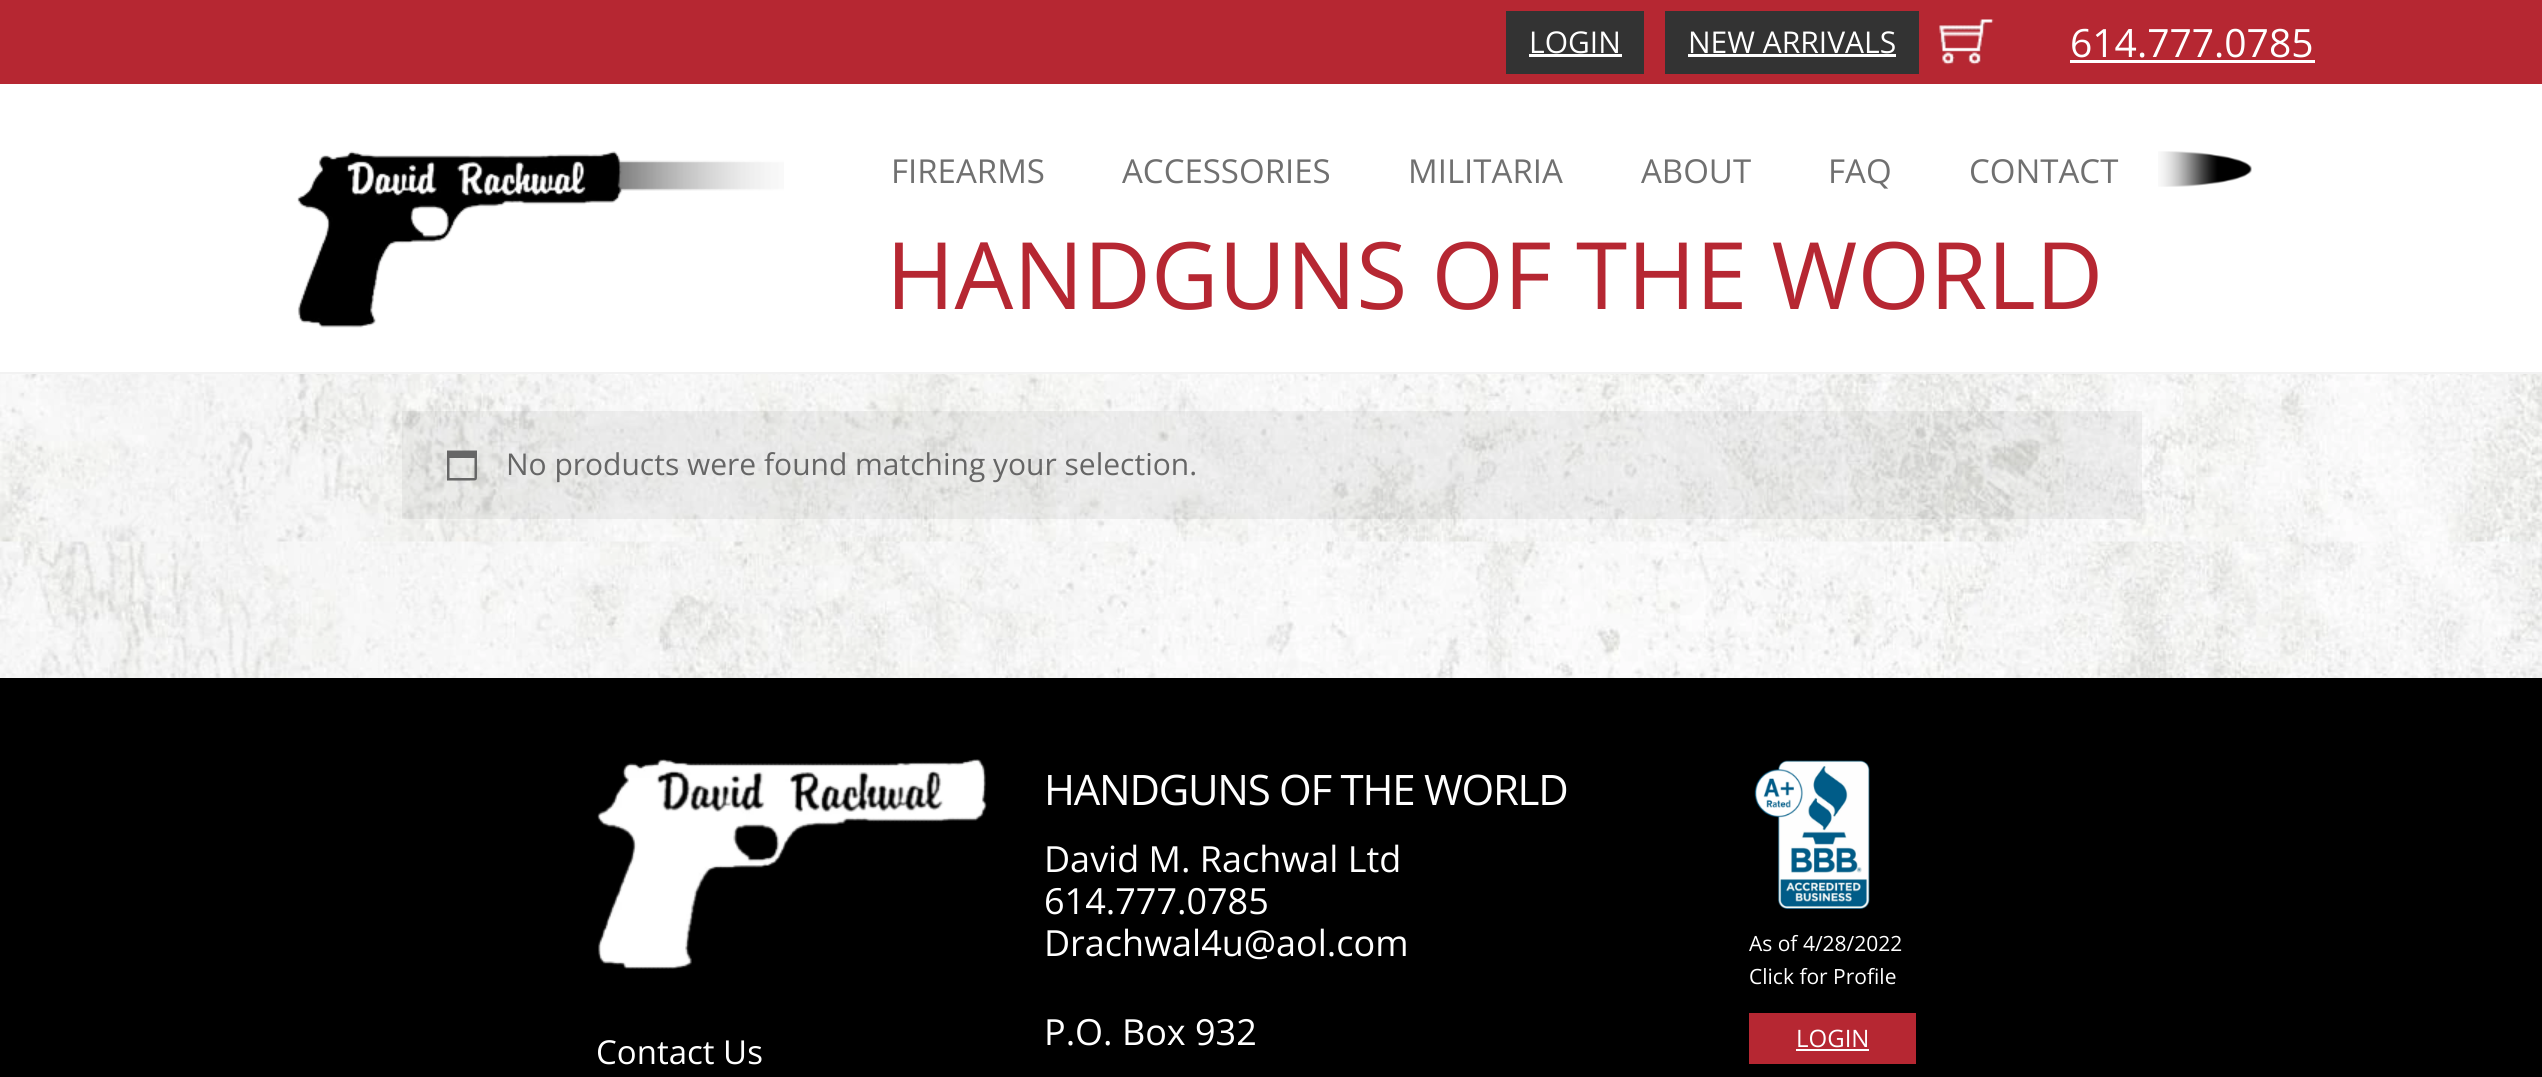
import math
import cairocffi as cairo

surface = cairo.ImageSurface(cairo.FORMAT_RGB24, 2542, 1077)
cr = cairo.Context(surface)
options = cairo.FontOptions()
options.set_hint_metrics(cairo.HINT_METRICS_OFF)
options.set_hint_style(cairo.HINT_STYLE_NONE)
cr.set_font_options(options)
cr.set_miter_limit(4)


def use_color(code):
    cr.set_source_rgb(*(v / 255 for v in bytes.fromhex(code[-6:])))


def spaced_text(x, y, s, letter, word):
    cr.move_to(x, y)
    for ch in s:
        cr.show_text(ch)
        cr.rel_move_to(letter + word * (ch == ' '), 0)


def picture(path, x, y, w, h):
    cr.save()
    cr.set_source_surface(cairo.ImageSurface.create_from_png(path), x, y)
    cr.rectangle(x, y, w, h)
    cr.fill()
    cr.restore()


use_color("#ffffff")
cr.paint()
picture("img1.png", 0, 374, 2542, 304)
use_color("#f2f2f2")
cr.rectangle(0, 372, 2542, 2)
cr.fill()
use_color("#b62732")
cr.rectangle(0, 0, 2542, 84)
cr.fill()
use_color("#333333")
cr.rectangle(1506, 11, 138, 63)
cr.fill()
cr.select_font_face("Open Sans")
cr.set_font_size(30)
use_color("#ffffff")
cr.move_to(1529, 53)
cr.show_text("LOGIN")
cr.rectangle(1529, 54, 93, 3)
cr.fill()
use_color("#333333")
cr.rectangle(1665, 11, 254, 63)
cr.fill()
use_color("#ffffff")
cr.move_to(1688, 53)
cr.show_text("NEW ARRIVALS")
cr.rectangle(1688, 54, 208, 3)
cr.fill()
picture("img2.png", 1939, 19, 55, 46)
cr.set_font_size(39)
cr.move_to(2070, 57)
cr.show_text("614.777.0785")
cr.rectangle(2070, 60, 245, 3)
cr.fill()
picture("img3.png", 297, 151, 487, 177)
cr.set_font_size(33)
use_color("#707070")
cr.move_to(891, 183)
cr.show_text("FIREARMS")
cr.move_to(1122, 183)
cr.show_text("ACCESSORIES")
cr.move_to(1408, 183)
cr.show_text("MILITARIA")
cr.move_to(1641, 183)
cr.show_text("ABOUT")
cr.move_to(1828, 183)
cr.show_text("FAQ")
cr.move_to(1969, 183)
cr.show_text("CONTACT")
picture("img4.png", 2158, 151, 94, 36)
cr.set_font_size(93)
use_color("#b62732")
cr.move_to(886, 309)
cr.show_text("HANDGUNS OF THE WORLD")
cr.set_source_rgba(0, 0, 0, 0.05)
cr.rectangle(402, 411, 1740, 108)
cr.fill()
use_color("#666666")
cr.new_path()
cr.move_to(474.5, 458)
cr.line_to(449.5, 458)
cr.line_to(449.5, 478)
cr.line_to(474.5, 478)
cr.close_path()
cr.move_to(477, 450.5)
cr.line_to(477, 473.5)
cr.curve_to(477, 481, 477.5, 480.5, 470, 480.5)
cr.line_to(447, 480.5)
cr.line_to(447, 450.5)
cr.close_path()
cr.fill()
cr.set_font_size(30)
cr.move_to(506, 475)
cr.show_text("No products were found matching your selection.")
use_color("#000000")
cr.rectangle(0, 678, 2542, 399)
cr.fill()
cr.set_font_size(42)
use_color("#ffffff")
spaced_text(1044, 805, "HANDGUNS OF THE WORLD", -1.25, 0)
cr.set_font_size(36)
cr.move_to(1044, 872)
cr.show_text("David M. Rachwal Ltd")
cr.move_to(1044, 914)
cr.show_text("614.777.0785")
cr.move_to(1044, 956)
cr.show_text("Drachwal4u@aol.com")
cr.move_to(1044, 1045)
cr.show_text("P.O. Box 932")
picture("img5.png", 1754, 760, 116, 149)
cr.set_font_size(21)
cr.move_to(1749, 951)
cr.show_text("As of 4/28/2022")
cr.move_to(1749, 984)
cr.show_text("Click for Profile")
use_color("#b62732")
cr.rectangle(1749, 1013, 167, 51)
cr.fill()
cr.set_font_size(24)
use_color("#ffffff")
cr.move_to(1796, 1047)
cr.show_text("LOGIN")
cr.rectangle(1796, 1049, 73, 2)
cr.fill()
picture("img6.png", 597, 759, 390, 210)
cr.set_font_size(33)
cr.move_to(596, 1064)
cr.show_text("Contact Us")
surface.write_to_png("result.png")
